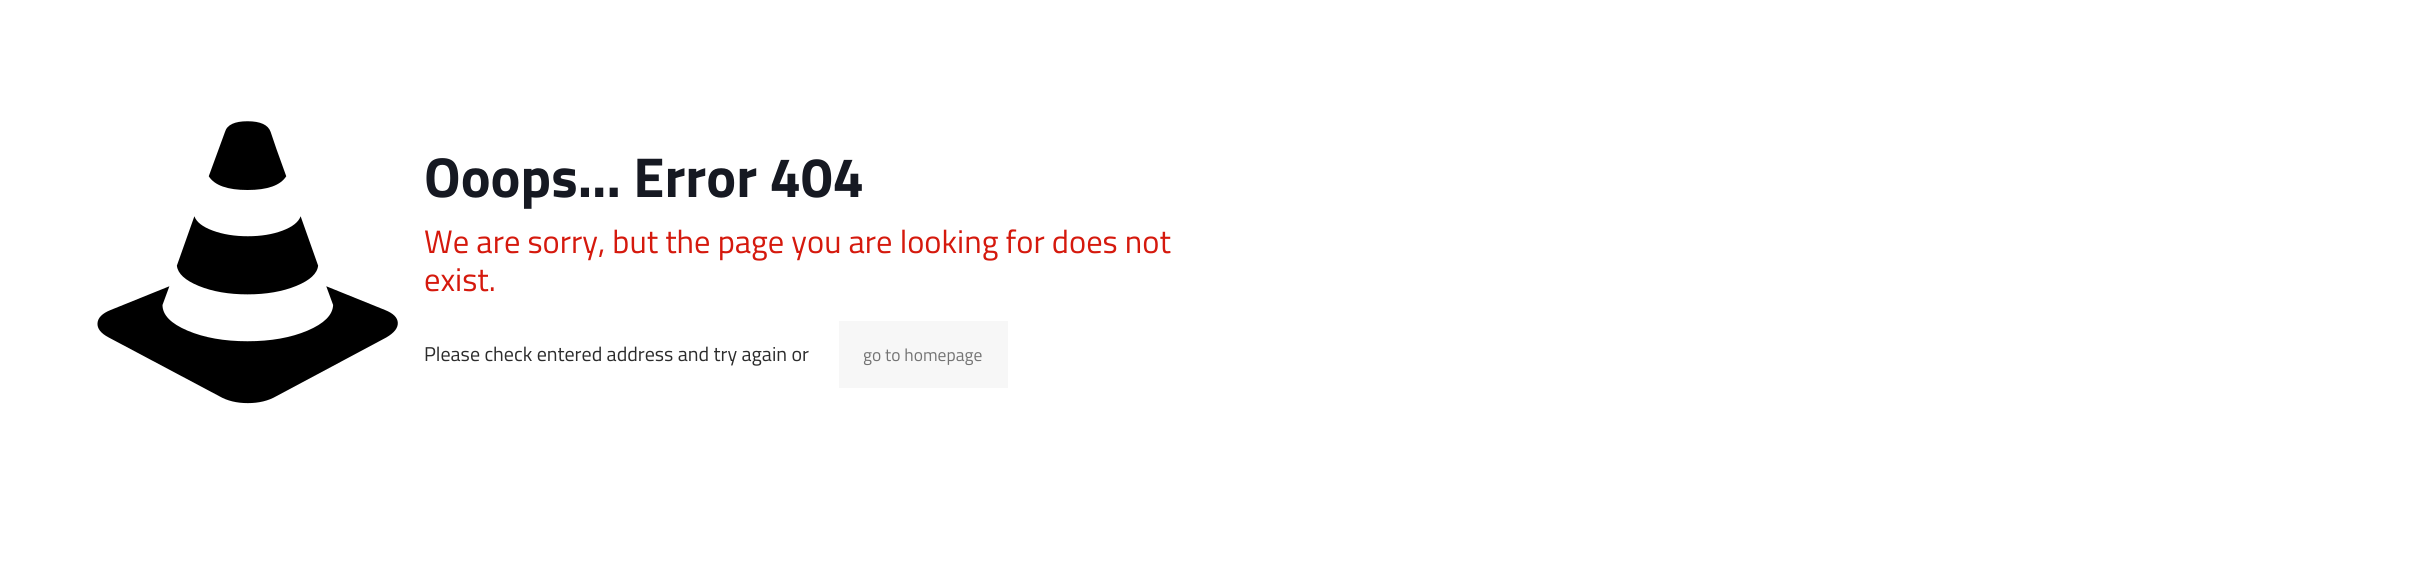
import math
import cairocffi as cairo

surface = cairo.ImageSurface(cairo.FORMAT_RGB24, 2420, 571)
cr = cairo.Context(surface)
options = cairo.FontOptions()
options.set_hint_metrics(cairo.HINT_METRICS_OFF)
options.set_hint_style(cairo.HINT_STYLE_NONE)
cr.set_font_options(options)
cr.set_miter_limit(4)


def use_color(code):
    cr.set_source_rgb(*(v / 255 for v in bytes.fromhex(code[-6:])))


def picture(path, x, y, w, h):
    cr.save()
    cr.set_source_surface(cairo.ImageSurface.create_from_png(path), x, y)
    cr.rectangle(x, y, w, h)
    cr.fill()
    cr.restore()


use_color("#ffffff")
cr.paint()
picture("img1.png", 97, 121, 301, 283)
cr.select_font_face("Titillium Web", cairo.FONT_SLANT_NORMAL, cairo.FONT_WEIGHT_BOLD)
cr.set_font_size(56.25)
use_color("#161922")
cr.move_to(424, 197)
cr.show_text("Ooops... Error 404")
cr.select_font_face("Titillium Web")
cr.set_font_size(32.5)
use_color("#d5190d")
cr.move_to(424, 253)
cr.show_text("We are sorry, but the page you are looking for does not")
cr.move_to(424, 291)
cr.show_text("exist.")
cr.set_font_size(20)
use_color("#2c2c2c")
cr.move_to(424, 361)
cr.show_text("Please check entered address and try again or")
use_color("#f7f7f7")
cr.rectangle(839, 321, 169, 67)
cr.fill()
cr.set_font_size(17.5)
use_color("#747474")
cr.move_to(863, 361)
cr.show_text("go to homepage")
surface.write_to_png("result.png")
